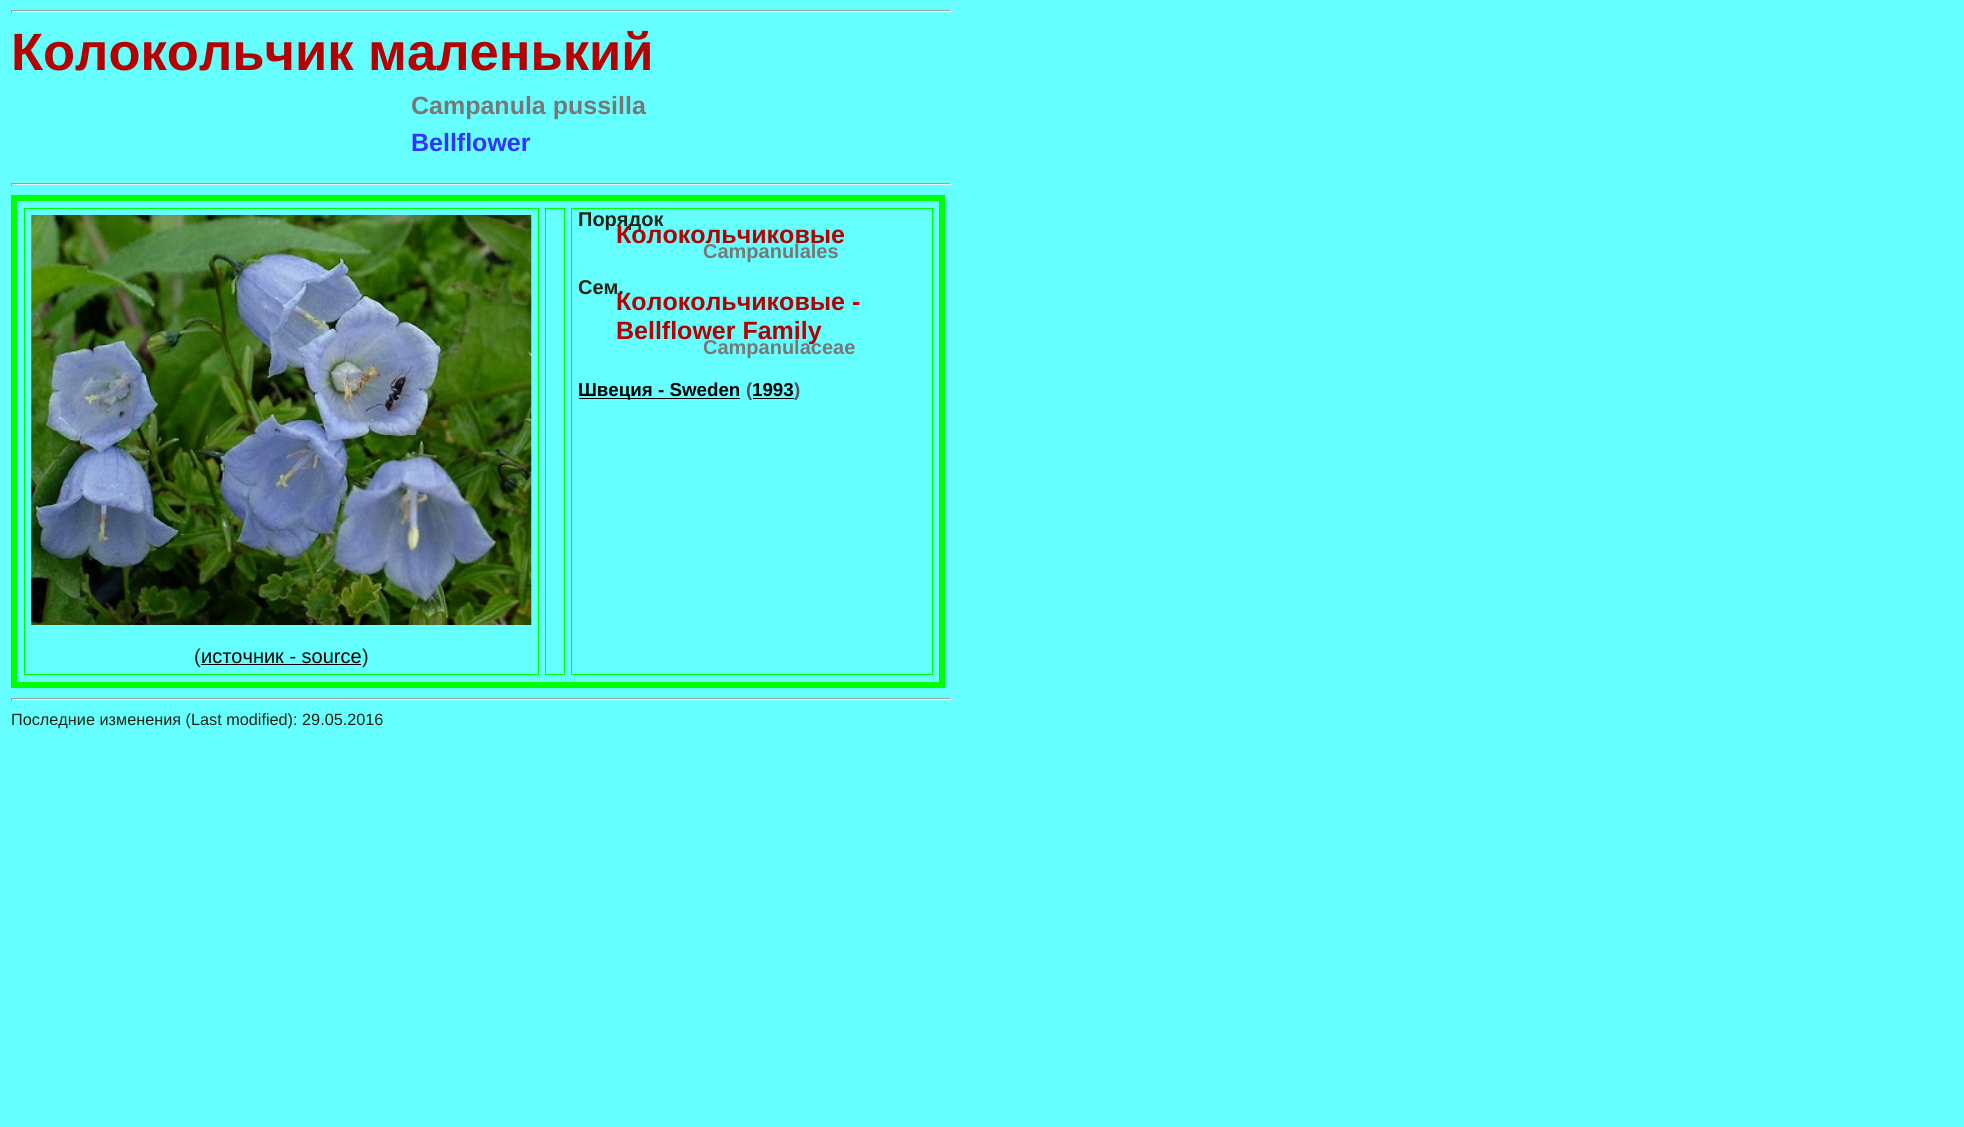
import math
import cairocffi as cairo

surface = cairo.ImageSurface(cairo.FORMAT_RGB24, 1964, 1127)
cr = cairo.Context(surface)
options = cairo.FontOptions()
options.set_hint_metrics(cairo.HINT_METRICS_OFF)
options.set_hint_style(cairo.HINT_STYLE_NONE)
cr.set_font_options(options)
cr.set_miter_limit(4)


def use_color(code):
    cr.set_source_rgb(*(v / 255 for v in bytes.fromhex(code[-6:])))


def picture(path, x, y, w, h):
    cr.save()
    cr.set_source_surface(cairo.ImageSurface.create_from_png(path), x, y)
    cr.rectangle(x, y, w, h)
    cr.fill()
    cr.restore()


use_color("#66ffff")
cr.paint()
use_color("#9f9f9f")
cr.rectangle(11, 10, 940, 1)
cr.fill()
use_color("#eeeeee")
cr.rectangle(950, 10, 1, 3)
cr.fill()
cr.rectangle(11, 11, 940, 1)
cr.fill()
use_color("#9f9f9f")
cr.rectangle(11, 10, 1, 3)
cr.fill()
cr.select_font_face("Liberation Sans", cairo.FONT_SLANT_NORMAL, cairo.FONT_WEIGHT_BOLD)
cr.set_font_size(52.5)
use_color("#b40000")
cr.move_to(11, 70)
cr.show_text("Колокольчик маленький")
cr.set_font_size(25)
use_color("#777777")
cr.move_to(411, 114)
cr.show_text("Campanula pussilla")
use_color("#3333ff")
cr.move_to(411, 151)
cr.show_text("Bellflower")
use_color("#9f9f9f")
cr.rectangle(11, 183, 940, 1)
cr.fill()
use_color("#eeeeee")
cr.rectangle(950, 183, 1, 3)
cr.fill()
cr.rectangle(11, 184, 940, 1)
cr.fill()
use_color("#9f9f9f")
cr.rectangle(11, 183, 1, 3)
cr.fill()
cr.rectangle(14, 198, 928, 487)
use_color("#00ff00")
cr.set_line_width(6)
cr.stroke()
cr.rectangle(545.5, 208.5, 19, 466)
cr.set_line_width(1)
cr.stroke()
cr.rectangle(571.5, 208.5, 361, 466)
cr.stroke()
cr.set_font_size(20)
use_color("#222211")
cr.move_to(578, 226)
cr.show_text("Порядок")
cr.set_font_size(25)
use_color("#b40000")
cr.move_to(616, 243)
cr.show_text("Колокольчиковые")
cr.set_font_size(20)
use_color("#777777")
cr.move_to(703, 258)
cr.show_text("Campanulales")
use_color("#222211")
cr.move_to(578, 294)
cr.show_text("Сем.")
cr.set_font_size(25)
use_color("#b40000")
cr.move_to(616, 310)
cr.show_text("Колокольчиковые -")
cr.move_to(616, 339)
cr.show_text("Bellflower Family")
cr.set_font_size(20)
use_color("#777777")
cr.move_to(703, 354)
cr.show_text("Campanulaceae")
use_color("#000000")
cr.rectangle(579, 398, 161, 1)
cr.fill()
cr.set_font_size(18.75)
cr.move_to(578, 396)
cr.show_text("Швеция - Sweden")
use_color("#555555")
cr.move_to(746, 396)
cr.show_text("(")
use_color("#000000")
cr.move_to(752, 396)
cr.show_text("1993")
cr.rectangle(753, 398, 41, 1)
cr.fill()
use_color("#555555")
cr.move_to(794, 396)
cr.show_text(")")
cr.rectangle(24.5, 208.5, 514, 466)
use_color("#00ff00")
cr.stroke()
picture("img1.png", 31, 215, 501, 410)
cr.select_font_face("Liberation Sans")
cr.set_font_size(20)
use_color("#222211")
cr.move_to(194, 663)
cr.show_text("(")
use_color("#000000")
cr.move_to(201, 663)
cr.show_text("источник - source")
cr.rectangle(201, 664, 160, 1)
cr.fill()
use_color("#222211")
cr.move_to(362, 663)
cr.show_text(")")
use_color("#9f9f9f")
cr.rectangle(11, 698, 940, 1)
cr.fill()
use_color("#eeeeee")
cr.rectangle(950, 698, 1, 3)
cr.fill()
cr.rectangle(11, 699, 940, 1)
cr.fill()
use_color("#9f9f9f")
cr.rectangle(11, 698, 1, 3)
cr.fill()
cr.set_font_size(16.25)
use_color("#222211")
cr.move_to(11, 725)
cr.show_text("Последние изменения (Last modified): 29.05.2016")
surface.write_to_png("result.png")
